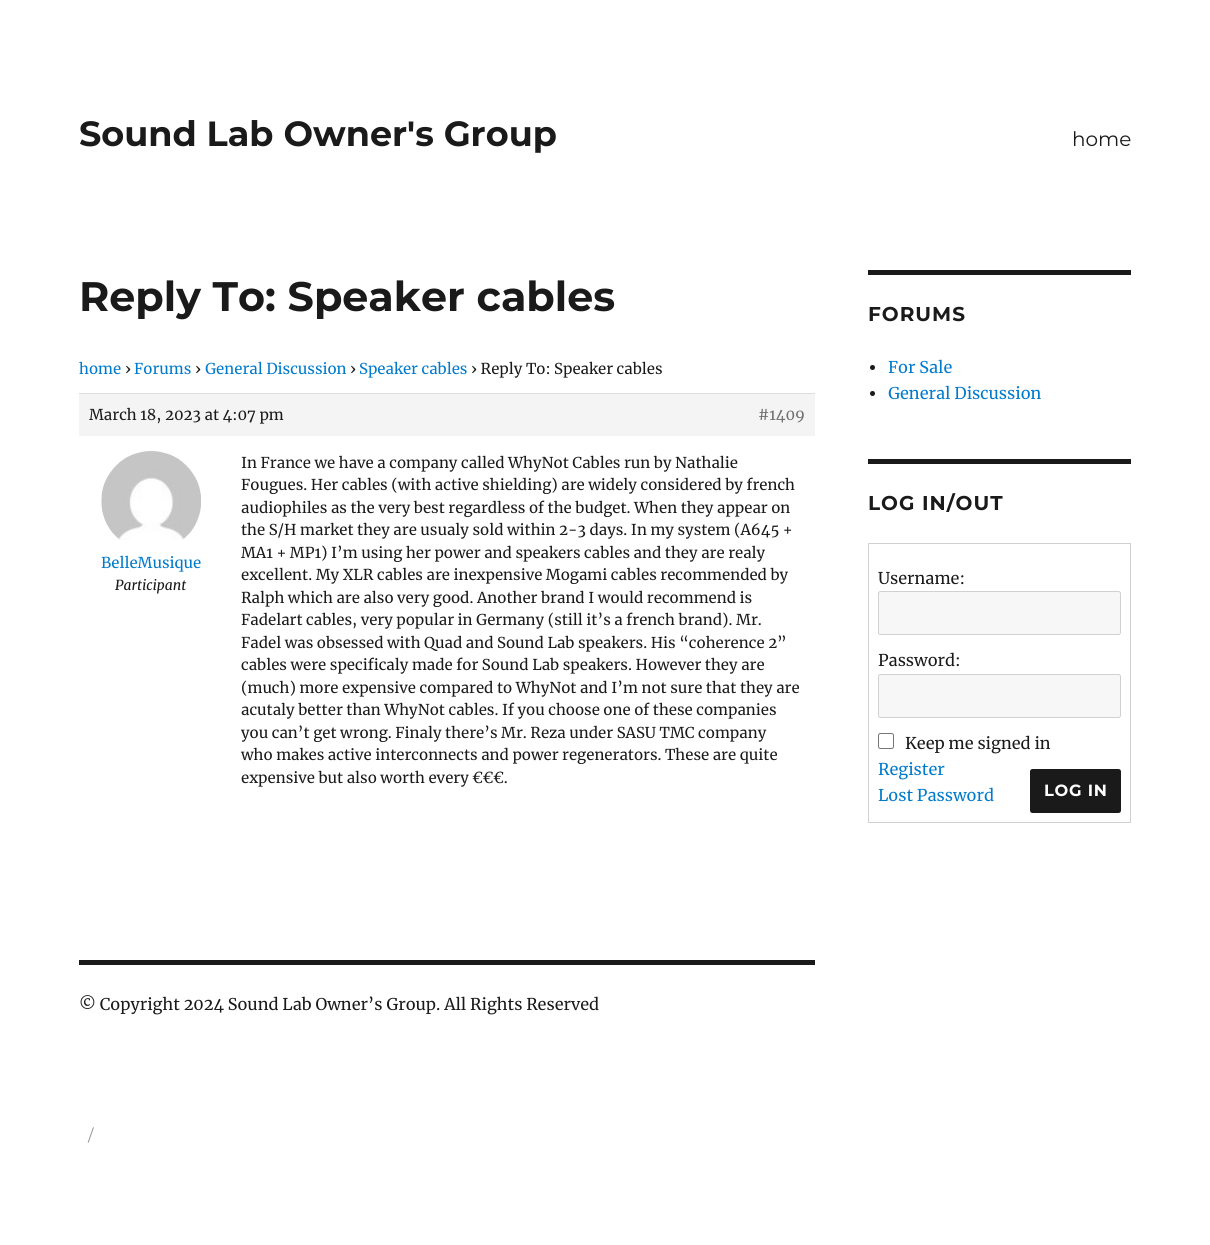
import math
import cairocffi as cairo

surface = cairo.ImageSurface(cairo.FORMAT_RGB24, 1210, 1245)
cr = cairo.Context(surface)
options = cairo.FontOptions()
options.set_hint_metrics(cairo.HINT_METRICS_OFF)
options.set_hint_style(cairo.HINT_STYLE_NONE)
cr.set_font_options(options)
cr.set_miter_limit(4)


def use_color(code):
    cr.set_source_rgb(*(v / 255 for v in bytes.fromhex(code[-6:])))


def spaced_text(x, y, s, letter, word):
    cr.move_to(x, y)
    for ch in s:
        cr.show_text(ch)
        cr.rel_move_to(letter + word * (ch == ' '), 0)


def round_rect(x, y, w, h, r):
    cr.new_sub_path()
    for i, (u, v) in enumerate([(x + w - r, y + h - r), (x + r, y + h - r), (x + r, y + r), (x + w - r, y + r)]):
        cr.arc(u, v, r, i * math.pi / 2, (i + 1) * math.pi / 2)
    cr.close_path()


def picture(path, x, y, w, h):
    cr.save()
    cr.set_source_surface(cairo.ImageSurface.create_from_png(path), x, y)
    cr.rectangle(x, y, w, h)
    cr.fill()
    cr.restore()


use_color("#ffffff")
cr.paint()
cr.select_font_face("Montserrat Thin")
cr.set_font_size(35)
use_color("#1a1a1a")
cr.move_to(79, 146)
cr.show_text("Sound Lab Owner's Group")
cr.select_font_face("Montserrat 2 Thin")
cr.set_font_size(20)
cr.move_to(1072, 146)
cr.show_text("home")
cr.select_font_face("Montserrat Thin")
cr.set_font_size(41.25)
cr.move_to(79, 311)
cr.show_text("Reply To: Speaker cables")
cr.select_font_face("Merriweather")
cr.set_font_size(15)
use_color("#007acc")
cr.move_to(79, 374)
cr.show_text("home")
use_color("#1a1a1a")
cr.move_to(125, 374)
cr.show_text("›")
use_color("#007acc")
cr.move_to(134, 374)
cr.show_text("Forums")
use_color("#1a1a1a")
cr.move_to(195, 374)
cr.show_text("›")
use_color("#007acc")
cr.move_to(205, 374)
cr.show_text("General Discussion")
use_color("#1a1a1a")
cr.move_to(350, 374)
cr.show_text("›")
use_color("#007acc")
cr.move_to(359, 374)
cr.show_text("Speaker cables")
use_color("#1a1a1a")
cr.move_to(471, 374)
cr.show_text("› Reply To: Speaker cables")
use_color("#f4f4f4")
cr.rectangle(79, 394, 736, 42)
cr.fill()
use_color("#dddddd")
cr.rectangle(79, 393, 736, 1)
cr.fill()
use_color("#1a1a1a")
cr.move_to(89, 420)
cr.show_text("March 18, 2023 at 4:07 pm")
use_color("#707070")
cr.move_to(758, 420)
cr.show_text("#1409")
picture("img1.png", 101, 451, 100, 89)
use_color("#007acc")
cr.move_to(101, 568)
cr.show_text("BelleMusique")
cr.select_font_face("Merriweather", cairo.FONT_SLANT_ITALIC)
cr.set_font_size(13.75)
use_color("#1a1a1a")
cr.move_to(115, 590)
cr.show_text("Participant")
cr.select_font_face("Merriweather")
cr.set_font_size(15)
cr.move_to(241, 468)
cr.show_text("In France we have a company called WhyNot Cables run by Nathalie")
cr.move_to(241, 490)
cr.show_text("Fougues. Her cables (with active shielding) are widely considered by french")
cr.move_to(241, 513)
cr.show_text("audiophiles as the very best regardless of the budget. When they appear on")
cr.move_to(241, 535)
cr.show_text("the S/H market they are usualy sold within 2-3 days. In my system (A645 +")
cr.move_to(241, 558)
cr.show_text("MA1 + MP1) I’m using her power and speakers cables and they are realy")
cr.move_to(241, 580)
cr.show_text("excellent. My XLR cables are inexpensive Mogami cables recommended by")
cr.move_to(241, 603)
cr.show_text("Ralph which are also very good. Another brand I would recommend is")
cr.move_to(241, 625)
cr.show_text("Fadelart cables, very popular in Germany (still it’s a french brand). Mr.")
cr.move_to(241, 648)
cr.show_text("Fadel was obsessed with Quad and Sound Lab speakers. His “coherence 2”")
cr.move_to(241, 670)
cr.show_text("cables were specificaly made for Sound Lab speakers. However they are")
cr.move_to(241, 693)
cr.show_text("(much) more expensive compared to WhyNot and I’m not sure that they are")
cr.move_to(241, 715)
cr.show_text("acutaly better than WhyNot cables. If you choose one of these companies")
cr.move_to(241, 738)
cr.show_text("you can’t get wrong. Finaly there’s Mr. Reza under SASU TMC company")
cr.move_to(241, 760)
cr.show_text("who makes active interconnects and power regenerators. These are quite")
cr.move_to(241, 783)
cr.show_text("expensive but also worth every €€€.")
cr.rectangle(79, 960, 736, 5)
cr.fill()
cr.set_font_size(16.25)
cr.move_to(79, 1010)
cr.show_text("© Copyright 2024 Sound Lab Owner’s Group. All Rights Reserved")
cr.rectangle(868, 270, 263, 5)
cr.fill()
cr.select_font_face("Montserrat Thin")
cr.set_font_size(20)
spaced_text(868, 321, "FORUMS", 1, 0)
cr.new_path()
cr.arc(872.5, 367.5, 2.5, 0, 2 * math.pi)
cr.fill()
cr.select_font_face("Merriweather")
cr.set_font_size(16.25)
use_color("#007acc")
cr.move_to(888, 373)
cr.show_text("For Sale")
use_color("#1a1a1a")
cr.new_path()
cr.arc(872.5, 393.5, 2.5, 0, 2 * math.pi)
cr.fill()
use_color("#007acc")
cr.move_to(888, 399)
cr.show_text("General Discussion")
use_color("#1a1a1a")
cr.rectangle(868, 459, 263, 5)
cr.fill()
cr.select_font_face("Montserrat Thin")
cr.set_font_size(20)
spaced_text(868, 510, "LOG IN/OUT", 1, 0)
cr.rectangle(868.5, 543.5, 262, 279)
use_color("#d1d1d1")
cr.set_line_width(1)
cr.stroke()
cr.select_font_face("Merriweather")
cr.set_font_size(16.25)
use_color("#1a1a1a")
cr.move_to(878, 584)
cr.show_text("Username:")
use_color("#f7f7f7")
round_rect(878.5, 591.5, 242, 43, 2)
cr.fill_preserve()
use_color("#d1d1d1")
cr.stroke()
use_color("#1a1a1a")
cr.move_to(878, 666)
cr.show_text("Password:")
use_color("#f7f7f7")
round_rect(878.5, 674.5, 242, 43, 2)
cr.fill_preserve()
use_color("#d1d1d1")
cr.stroke()
round_rect(878.5, 733.5, 15, 15, 2)
use_color("#767676")
cr.stroke()
use_color("#1a1a1a")
cr.move_to(905, 749)
cr.show_text("Keep me signed in")
use_color("#007acc")
cr.move_to(878, 775)
cr.show_text("Register")
cr.move_to(878, 801)
cr.show_text("Lost Password")
use_color("#1a1a1a")
round_rect(1030, 769, 91, 44, 2.5)
cr.fill()
cr.select_font_face("Montserrat Thin")
use_color("#ffffff")
spaced_text(1044, 796, "LOG IN", 0.75, 0)
cr.select_font_face("Montserrat 2 Thin")
use_color("#959595")
cr.move_to(88, 1141)
cr.show_text("/")
surface.write_to_png("result.png")
